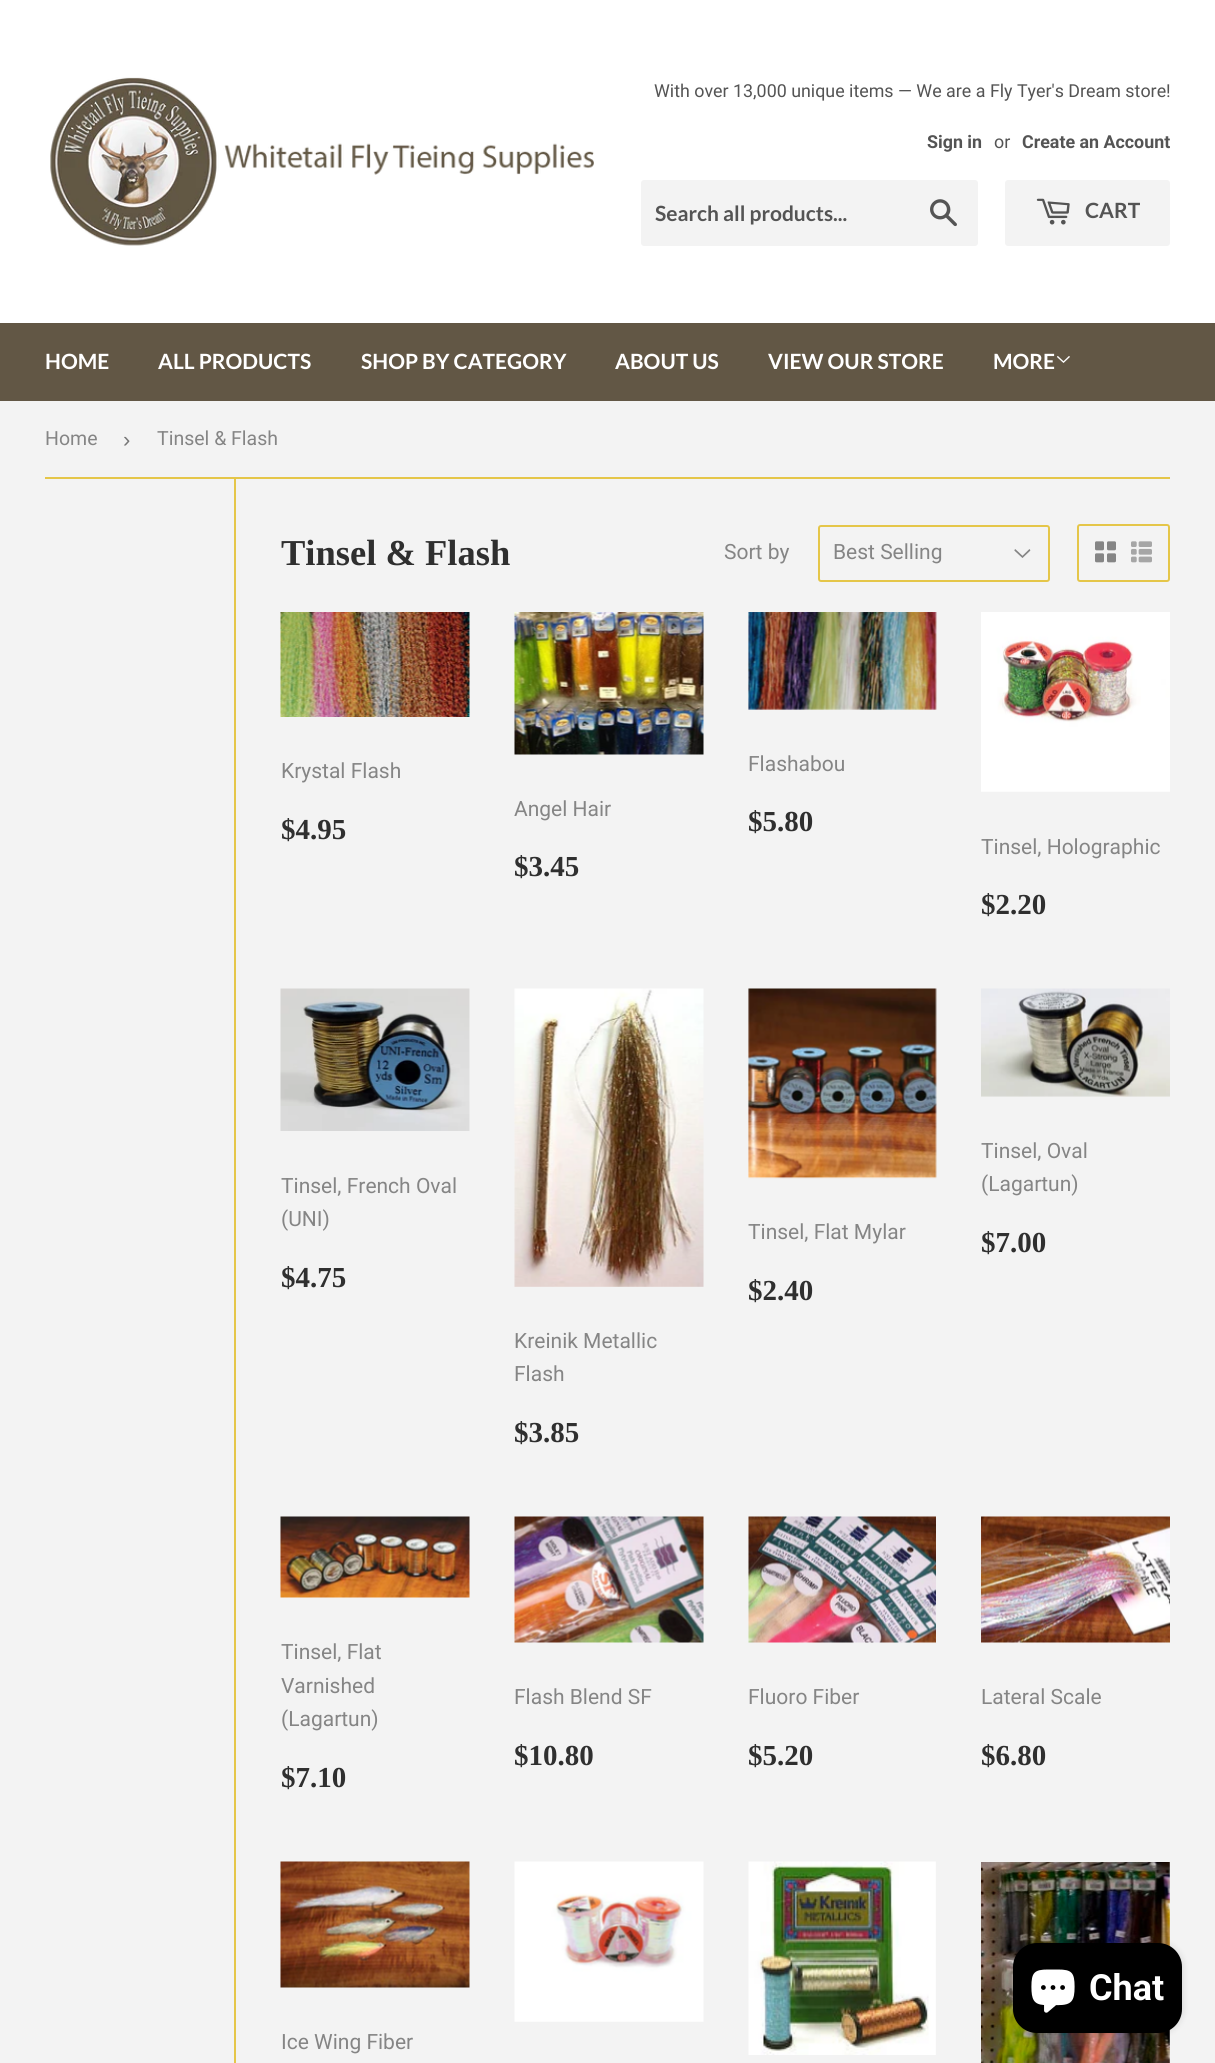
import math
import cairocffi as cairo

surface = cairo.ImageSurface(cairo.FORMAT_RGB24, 1215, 2063)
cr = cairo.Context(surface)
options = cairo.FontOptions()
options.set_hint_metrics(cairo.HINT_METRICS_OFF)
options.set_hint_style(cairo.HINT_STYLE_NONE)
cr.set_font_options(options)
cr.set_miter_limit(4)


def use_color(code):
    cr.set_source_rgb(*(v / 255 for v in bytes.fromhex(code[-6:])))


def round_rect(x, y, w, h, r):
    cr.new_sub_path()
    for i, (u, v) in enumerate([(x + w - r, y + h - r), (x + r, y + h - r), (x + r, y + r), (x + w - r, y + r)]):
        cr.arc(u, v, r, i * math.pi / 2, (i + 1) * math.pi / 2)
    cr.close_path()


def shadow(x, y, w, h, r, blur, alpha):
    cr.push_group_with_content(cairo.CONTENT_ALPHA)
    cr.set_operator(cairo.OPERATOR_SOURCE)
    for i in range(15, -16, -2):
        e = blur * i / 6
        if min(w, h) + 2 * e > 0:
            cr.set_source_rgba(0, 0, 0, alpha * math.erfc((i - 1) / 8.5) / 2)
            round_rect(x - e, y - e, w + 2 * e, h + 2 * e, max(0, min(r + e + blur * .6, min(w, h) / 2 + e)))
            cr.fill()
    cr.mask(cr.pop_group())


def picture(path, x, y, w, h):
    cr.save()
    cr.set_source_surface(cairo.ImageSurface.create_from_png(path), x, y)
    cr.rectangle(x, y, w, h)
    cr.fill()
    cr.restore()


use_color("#f3f3f3")
cr.paint()
use_color("#ffffff")
cr.rectangle(0, 0, 1215, 323)
cr.fill()
picture("img1.png", 50, 77, 544, 169)
cr.select_font_face("Roboto")
cr.set_font_size(17.85)
use_color("#545454")
cr.move_to(654, 97)
cr.show_text("With over 13,000 unique items — We are a Fly Tyer's Dream store!")
cr.select_font_face("Roboto", cairo.FONT_SLANT_NORMAL, cairo.FONT_WEIGHT_BOLD)
cr.move_to(927, 148)
cr.show_text("Sign in")
cr.select_font_face("Roboto")
cr.move_to(994, 148)
cr.show_text("or")
cr.select_font_face("Roboto", cairo.FONT_SLANT_NORMAL, cairo.FONT_WEIGHT_BOLD)
cr.move_to(1022, 148)
cr.show_text("Create an Account")
use_color("#f3f3f3")
round_rect(641, 180, 337, 66, 3)
cr.fill()
cr.select_font_face("Lato", cairo.FONT_SLANT_NORMAL, cairo.FONT_WEIGHT_BOLD)
cr.set_font_size(21)
use_color("#545454")
cr.move_to(655, 221)
cr.show_text("Search all products...")
picture("img2.png", 930, 199, 27, 28)
use_color("#f3f3f3")
round_rect(1005, 180, 165, 66, 3)
cr.fill()
picture("img3.png", 1036, 198, 34, 27)
use_color("#545454")
cr.move_to(1085, 218)
cr.show_text("CART")
use_color("#625745")
cr.rectangle(0, 323, 1215, 78)
cr.fill()
use_color("#ffffff")
cr.move_to(45, 369)
cr.show_text("HOME")
cr.move_to(158, 369)
cr.show_text("ALL PRODUCTS")
cr.move_to(361, 369)
cr.show_text("SHOP BY CATEGORY")
cr.move_to(615, 369)
cr.show_text("ABOUT US")
cr.move_to(768, 369)
cr.show_text("VIEW OUR STORE")
cr.move_to(993, 369)
cr.show_text("MORE")
picture("img4.png", 1057, 356, 13, 7)
use_color("#e5c649")
cr.rectangle(45, 477, 1125, 2)
cr.fill()
cr.select_font_face("Roboto")
cr.set_font_size(19.5)
use_color("#858585")
cr.move_to(45, 445)
cr.show_text("Home")
cr.select_font_face("Liberation Sans")
cr.set_font_size(22)
use_color("#767676")
cr.move_to(123, 447)
cr.show_text("›")
cr.select_font_face("Roboto")
cr.set_font_size(19.5)
use_color("#858585")
cr.move_to(157, 445)
cr.show_text("Tinsel & Flash")
use_color("#e5c649")
cr.rectangle(234, 479, 2, 1584)
cr.fill()
cr.select_font_face("Liberation Serif", cairo.FONT_SLANT_NORMAL, cairo.FONT_WEIGHT_BOLD)
cr.set_font_size(36.5)
use_color("#2f2f2f")
cr.move_to(281, 565)
cr.show_text("Tinsel & Flash")
cr.select_font_face("Roboto")
cr.set_font_size(21)
use_color("#858585")
cr.move_to(724, 559)
cr.show_text("Sort by")
picture("img5.png", 1014, 549, 17, 9)
round_rect(819, 526, 230, 55, 2)
use_color("#e5c649")
cr.stroke()
use_color("#858585")
cr.move_to(833, 559)
cr.show_text("Best Selling")
round_rect(1078, 525, 91, 56, 2)
use_color("#e5c649")
cr.stroke()
picture("img6.png", 1095, 541, 21, 22)
picture("img7.png", 1131, 541, 21, 22)
picture("img8.png", 280, 612, 190, 105)
use_color("#858585")
cr.move_to(281, 778)
cr.show_text("Krystal Flash")
cr.select_font_face("Liberation Serif", cairo.FONT_SLANT_NORMAL, cairo.FONT_WEIGHT_BOLD)
cr.set_font_size(29)
use_color("#2f2f2f")
cr.move_to(281, 839)
cr.show_text("$4.95")
picture("img9.png", 514, 612, 190, 143)
cr.select_font_face("Roboto")
cr.set_font_size(21)
use_color("#858585")
cr.move_to(514, 816)
cr.show_text("Angel Hair")
cr.select_font_face("Liberation Serif", cairo.FONT_SLANT_NORMAL, cairo.FONT_WEIGHT_BOLD)
cr.set_font_size(29)
use_color("#2f2f2f")
cr.move_to(514, 876)
cr.show_text("$3.45")
picture("img10.png", 748, 612, 189, 98)
cr.select_font_face("Roboto")
cr.set_font_size(21)
use_color("#858585")
cr.move_to(748, 771)
cr.show_text("Flashabou")
cr.select_font_face("Liberation Serif", cairo.FONT_SLANT_NORMAL, cairo.FONT_WEIGHT_BOLD)
cr.set_font_size(29)
use_color("#2f2f2f")
cr.move_to(748, 831)
cr.show_text("$5.80")
picture("img11.png", 981, 612, 189, 180)
cr.select_font_face("Roboto")
cr.set_font_size(21)
use_color("#858585")
cr.move_to(981, 854)
cr.show_text("Tinsel, Holographic")
cr.select_font_face("Liberation Serif", cairo.FONT_SLANT_NORMAL, cairo.FONT_WEIGHT_BOLD)
cr.set_font_size(29)
use_color("#2f2f2f")
cr.move_to(981, 914)
cr.show_text("$2.20")
picture("img12.png", 280, 988, 190, 143)
cr.select_font_face("Roboto")
cr.set_font_size(21)
use_color("#858585")
cr.move_to(281, 1193)
cr.show_text("Tinsel, French Oval")
cr.move_to(281, 1226)
cr.show_text("(UNI)")
cr.select_font_face("Liberation Serif", cairo.FONT_SLANT_NORMAL, cairo.FONT_WEIGHT_BOLD)
cr.set_font_size(29)
use_color("#2f2f2f")
cr.move_to(281, 1287)
cr.show_text("$4.75")
picture("img13.png", 748, 988, 189, 191)
cr.select_font_face("Roboto")
cr.set_font_size(21)
use_color("#858585")
cr.move_to(748, 1239)
cr.show_text("Tinsel, Flat Mylar")
cr.select_font_face("Liberation Serif", cairo.FONT_SLANT_NORMAL, cairo.FONT_WEIGHT_BOLD)
cr.set_font_size(29)
use_color("#2f2f2f")
cr.move_to(748, 1300)
cr.show_text("$2.40")
picture("img14.png", 981, 988, 189, 109)
cr.select_font_face("Roboto")
cr.set_font_size(21)
use_color("#858585")
cr.move_to(981, 1158)
cr.show_text("Tinsel, Oval")
cr.move_to(981, 1191)
cr.show_text("(Lagartun)")
cr.select_font_face("Liberation Serif", cairo.FONT_SLANT_NORMAL, cairo.FONT_WEIGHT_BOLD)
cr.set_font_size(29)
use_color("#2f2f2f")
cr.move_to(981, 1252)
cr.show_text("$7.00")
picture("img15.png", 514, 988, 190, 299)
cr.select_font_face("Roboto")
cr.set_font_size(21)
use_color("#858585")
cr.move_to(514, 1348)
cr.show_text("Kreinik Metallic")
cr.move_to(514, 1381)
cr.show_text("Flash")
cr.select_font_face("Liberation Serif", cairo.FONT_SLANT_NORMAL, cairo.FONT_WEIGHT_BOLD)
cr.set_font_size(29)
use_color("#2f2f2f")
cr.move_to(514, 1442)
cr.show_text("$3.85")
picture("img16.png", 280, 1516, 190, 82)
cr.select_font_face("Roboto")
cr.set_font_size(21)
use_color("#858585")
cr.move_to(281, 1659)
cr.show_text("Tinsel, Flat")
cr.move_to(281, 1693)
cr.show_text("Varnished")
cr.move_to(281, 1726)
cr.show_text("(Lagartun)")
cr.select_font_face("Liberation Serif", cairo.FONT_SLANT_NORMAL, cairo.FONT_WEIGHT_BOLD)
cr.set_font_size(29)
use_color("#2f2f2f")
cr.move_to(281, 1787)
cr.show_text("$7.10")
picture("img17.png", 514, 1516, 190, 127)
cr.select_font_face("Roboto")
cr.set_font_size(21)
use_color("#858585")
cr.move_to(514, 1704)
cr.show_text("Flash Blend SF")
cr.select_font_face("Liberation Serif", cairo.FONT_SLANT_NORMAL, cairo.FONT_WEIGHT_BOLD)
cr.set_font_size(29)
use_color("#2f2f2f")
cr.move_to(514, 1765)
cr.show_text("$10.80")
picture("img18.png", 748, 1516, 188, 127)
cr.select_font_face("Roboto")
cr.set_font_size(21)
use_color("#858585")
cr.move_to(748, 1704)
cr.show_text("Fluoro Fiber")
cr.select_font_face("Liberation Serif", cairo.FONT_SLANT_NORMAL, cairo.FONT_WEIGHT_BOLD)
cr.set_font_size(29)
use_color("#2f2f2f")
cr.move_to(748, 1765)
cr.show_text("$5.20")
picture("img19.png", 981, 1516, 189, 127)
cr.select_font_face("Roboto")
cr.set_font_size(21)
use_color("#858585")
cr.move_to(981, 1704)
cr.show_text("Lateral Scale")
cr.select_font_face("Liberation Serif", cairo.FONT_SLANT_NORMAL, cairo.FONT_WEIGHT_BOLD)
cr.set_font_size(29)
use_color("#2f2f2f")
cr.move_to(981, 1765)
cr.show_text("$6.80")
picture("img20.png", 280, 1861, 190, 127)
cr.select_font_face("Roboto")
cr.set_font_size(21)
use_color("#858585")
cr.move_to(281, 2049)
cr.show_text("Ice Wing Fiber")
picture("img21.png", 514, 1861, 190, 161)
picture("img22.png", 748, 1861, 188, 194)
picture("img23.png", 981, 1862, 189, 201)
use_color("#000000")
shadow(1013, 1943, 169, 90, 24, 4, 0.15)
use_color("#000000")
round_rect(1013, 1943, 169, 90, 24)
cr.fill()
picture("img24.png", 1031, 1969, 44, 44)
cr.select_font_face("Roboto", cairo.FONT_SLANT_NORMAL, cairo.FONT_WEIGHT_BOLD)
cr.set_font_size(36)
use_color("#ffffff")
cr.move_to(1089, 2000)
cr.show_text("Chat")
surface.write_to_png("result.png")
